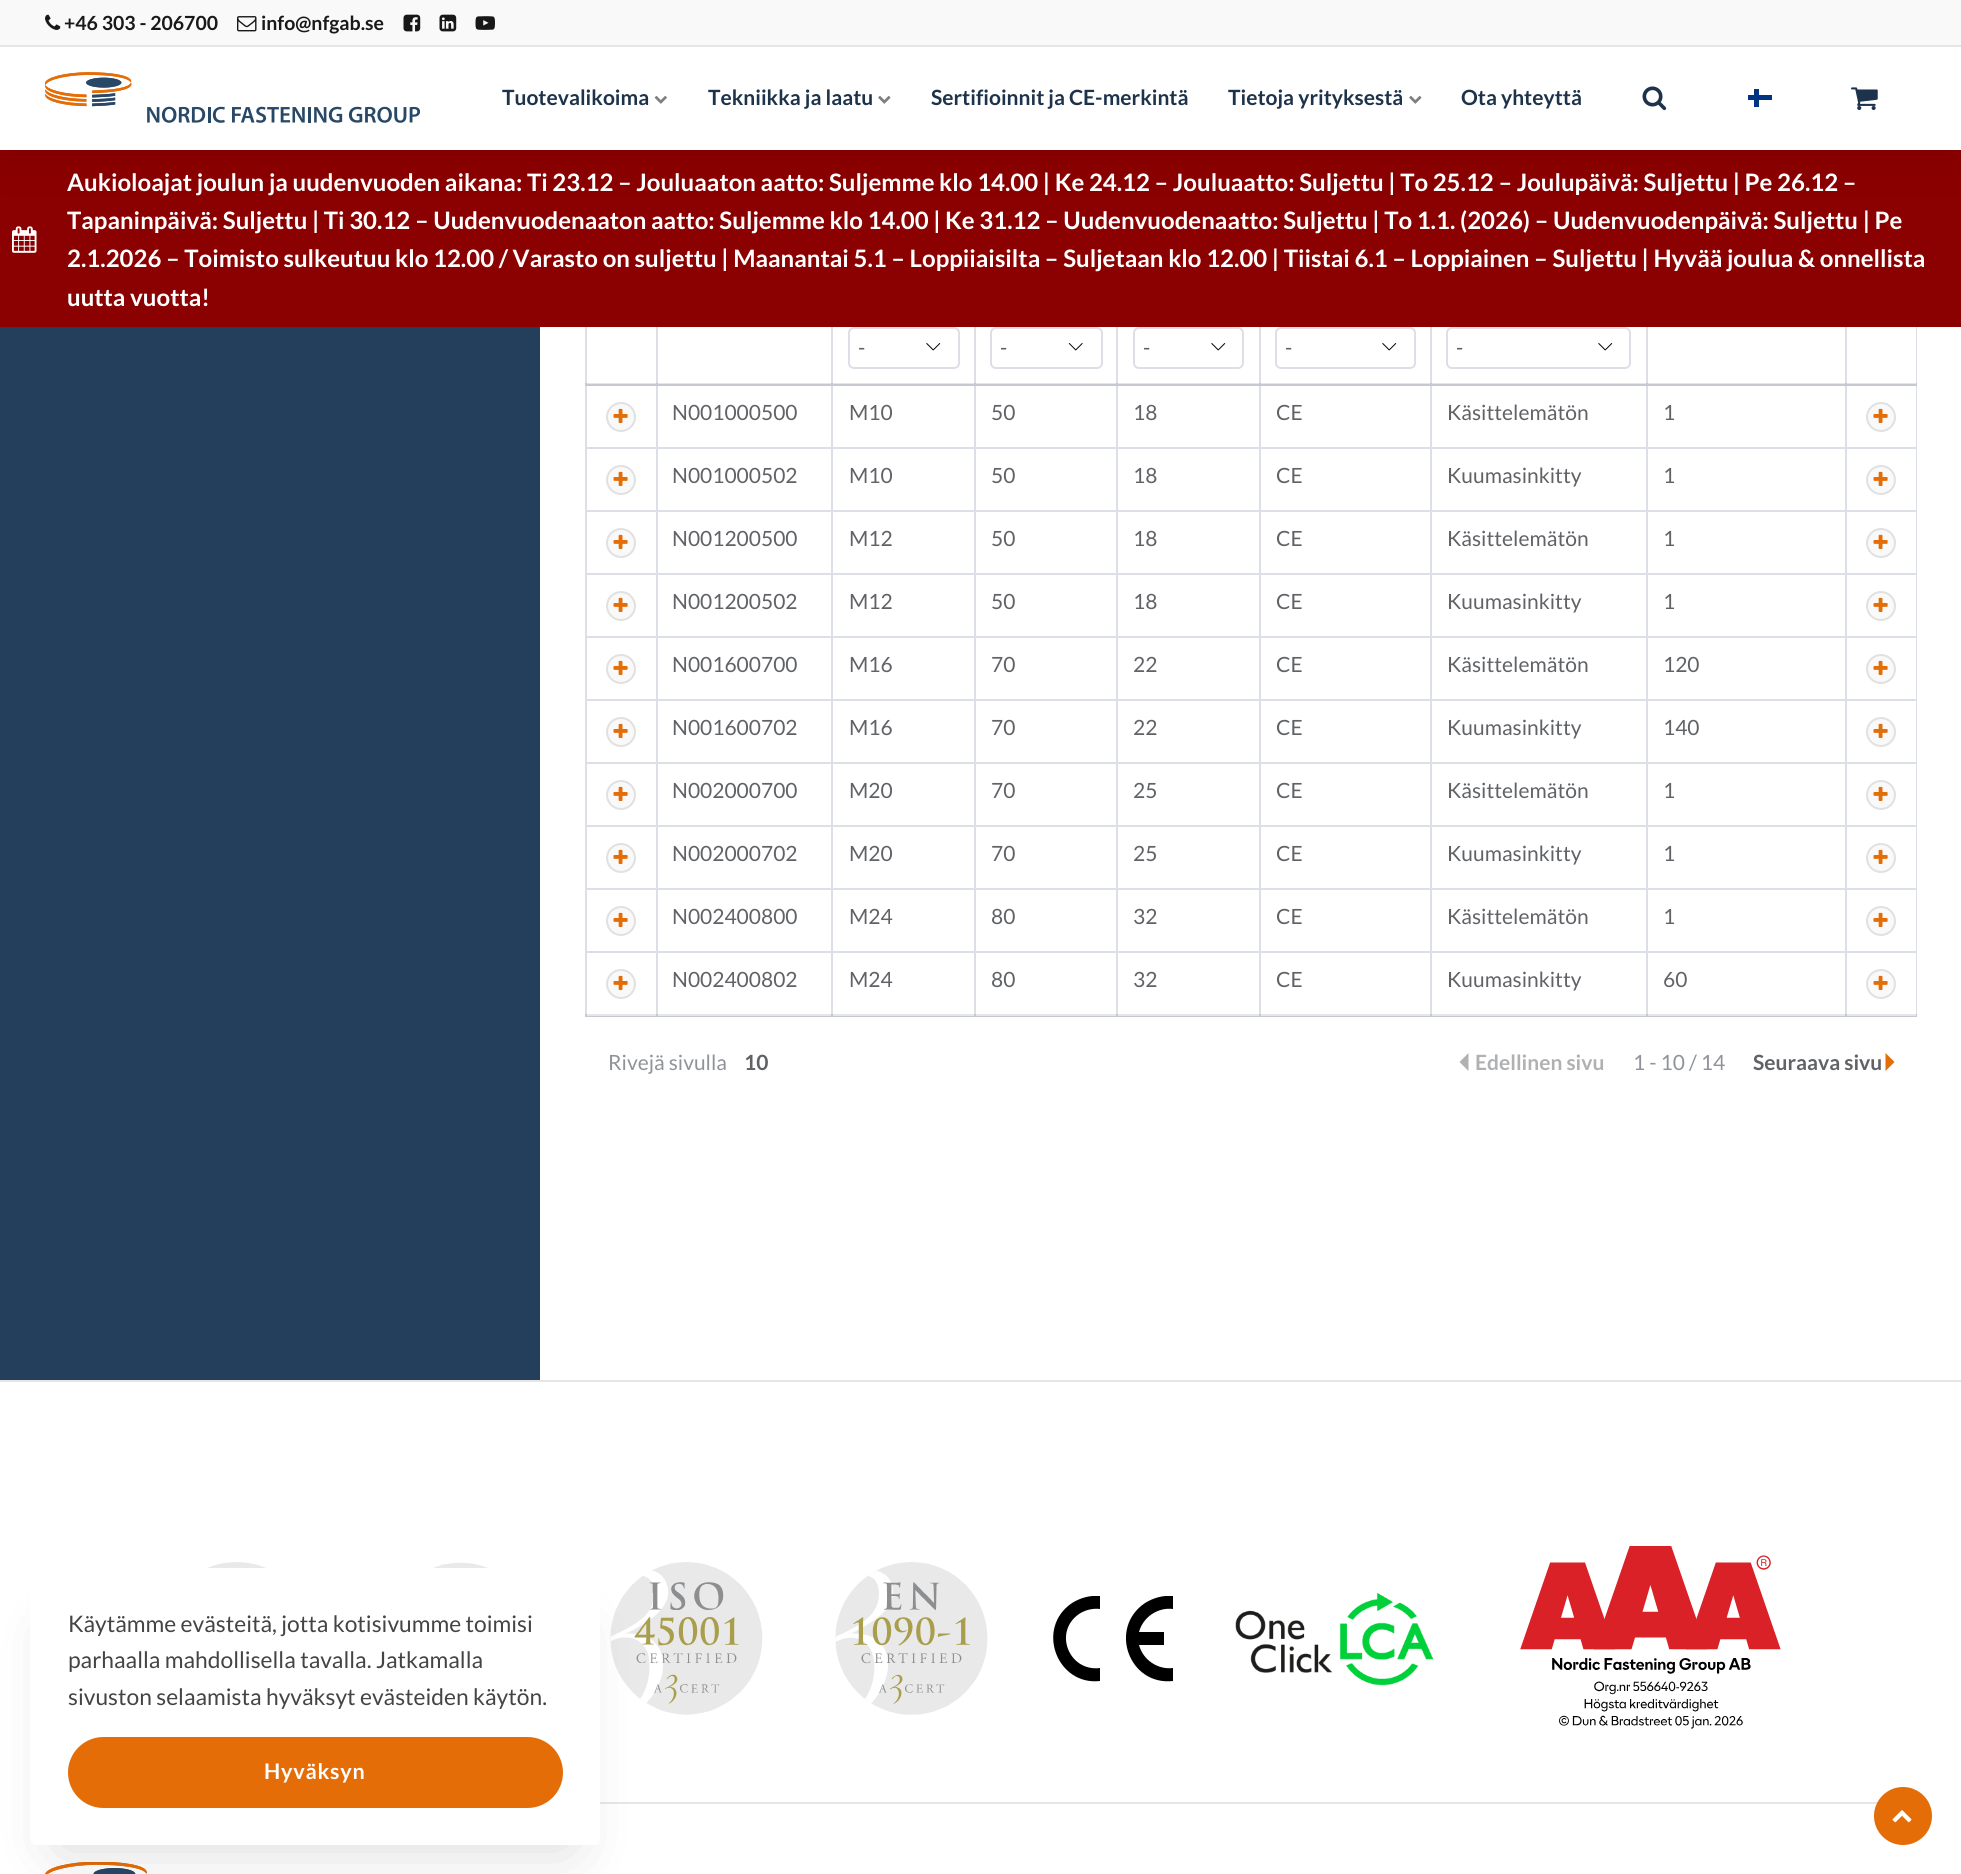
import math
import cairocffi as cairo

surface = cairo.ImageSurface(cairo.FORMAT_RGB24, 1961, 1874)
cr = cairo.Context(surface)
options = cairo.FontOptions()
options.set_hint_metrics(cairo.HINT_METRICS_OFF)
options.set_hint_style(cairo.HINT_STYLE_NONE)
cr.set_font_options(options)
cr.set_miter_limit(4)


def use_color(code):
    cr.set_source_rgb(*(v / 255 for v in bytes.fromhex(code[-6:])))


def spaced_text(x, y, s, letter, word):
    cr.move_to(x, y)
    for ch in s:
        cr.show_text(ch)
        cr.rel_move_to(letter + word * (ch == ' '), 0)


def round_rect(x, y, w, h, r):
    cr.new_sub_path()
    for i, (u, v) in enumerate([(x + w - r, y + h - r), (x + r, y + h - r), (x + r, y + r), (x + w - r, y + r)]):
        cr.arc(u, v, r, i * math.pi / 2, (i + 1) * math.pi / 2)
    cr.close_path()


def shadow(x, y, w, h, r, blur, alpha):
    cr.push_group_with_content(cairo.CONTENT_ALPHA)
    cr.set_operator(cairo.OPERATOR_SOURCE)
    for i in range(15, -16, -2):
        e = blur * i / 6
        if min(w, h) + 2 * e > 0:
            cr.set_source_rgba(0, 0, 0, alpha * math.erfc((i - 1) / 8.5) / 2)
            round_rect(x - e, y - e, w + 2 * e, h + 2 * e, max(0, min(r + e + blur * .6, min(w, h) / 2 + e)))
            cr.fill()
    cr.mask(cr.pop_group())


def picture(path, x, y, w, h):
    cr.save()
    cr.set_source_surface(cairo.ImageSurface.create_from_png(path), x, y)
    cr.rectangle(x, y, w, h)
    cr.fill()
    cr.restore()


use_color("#ffffff")
cr.paint()
use_color("#e6e6e6")
cr.rectangle(585, 383, 1332, 1)
cr.fill()
cr.rectangle(585, 1014, 1332, 2)
cr.fill()
use_color("#8b0000")
cr.rectangle(0, 150, 1961, 177)
cr.fill()
picture("img11.png", 12, 226, 25, 27)
use_color("#000000")
shadow(0, 45, 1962, 105, 0, 26, 0.1)
use_color("#ffffff")
cr.rectangle(0, 45, 1961, 105)
cr.fill()
cr.rectangle(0, 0, 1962, 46)
cr.set_source_rgba(0, 0, 0, 0.1)
cr.stroke()
use_color("#f9f9f9")
cr.rectangle(0, 0, 1961, 45)
cr.fill()
picture("img1.png", 45, 14, 16, 16)
cr.select_font_face("Lato", cairo.FONT_SLANT_NORMAL, cairo.FONT_WEIGHT_BOLD)
cr.set_font_size(19.5)
use_color("#191919")
cr.move_to(64, 30)
cr.show_text("+46 303 - 206700")
picture("img2.png", 237, 16, 20, 16)
cr.move_to(261, 30)
cr.show_text("info@nfgab.se")
picture("img3.png", 403, 14, 18, 18)
picture("img4.png", 439, 14, 18, 18)
picture("img5.png", 475, 16, 20, 14)
picture("img6.png", 45, 72, 376, 51)
cr.set_font_size(21)
use_color("#1d334b")
cr.move_to(502, 105)
cr.show_text("Tuotevalikoima")
picture("img7.png", 654, 95, 13, 9)
cr.move_to(708, 105)
cr.show_text("Tekniikka ja laatu")
picture("img8.png", 878, 95, 13, 9)
cr.move_to(931, 105)
cr.show_text("Sertifioinnit ja CE-merkintä")
cr.move_to(1228, 105)
cr.show_text("Tietoja yrityksestä")
picture("img8.png", 1409, 95, 13, 9)
cr.move_to(1461, 105)
cr.show_text("Ota yhteyttä")
picture("img9.png", 1642, 86, 25, 25)
use_color("#003580")
cr.rectangle(1748, 95, 24, 5)
cr.fill()
cr.rectangle(1754, 89, 5, 18)
cr.fill()
picture("img10.png", 1851, 87, 27, 23)
cr.set_font_size(24)
use_color("#ffffff")
cr.move_to(67, 191)
cr.show_text("Aukioloajat joulun ja uudenvuoden aikana: Ti 23.12 – Jouluaaton aatto: Suljemme klo 14.00 | Ke 24.12 – Jouluaatto: Suljettu | To 25.12 – Joulupäivä: Suljettu | Pe 26.12 –")
cr.move_to(67, 229)
cr.show_text("Tapaninpäivä: Suljettu | Ti 30.12 – Uudenvuodenaaton aatto: Suljemme klo 14.00 | Ke 31.12 – Uudenvuodenaatto: Suljettu | To 1.1. (2026) – Uudenvuodenpäivä: Suljettu | Pe")
cr.move_to(67, 267)
cr.show_text("2.1.2026 – Toimisto sulkeutuu klo 12.00 / Varasto on suljettu | Maanantai 5.1 – Loppiiaisilta – Suljetaan klo 12.00 | Tiistai 6.1 – Loppiainen – Suljettu | Hyvää joulua & onnellista")
cr.move_to(67, 306)
cr.show_text("uutta vuotta!")
use_color("#233f5b")
cr.rectangle(0, 327, 540, 1053)
cr.fill()
use_color("#dcdfe6")
cr.rectangle(1916, 327, 1, 690)
cr.fill()
use_color("#c6c9cf")
cr.rectangle(1916, 383, 1, 3)
cr.fill()
cr.rectangle(1916, 1014, 1, 3)
cr.fill()
cr.rectangle(585, 1016, 1332, 1)
cr.fill()
use_color("#dcdfe6")
cr.rectangle(585, 327, 2, 690)
cr.fill()
use_color("#c6c9cf")
cr.rectangle(585, 383, 2, 3)
cr.fill()
cr.rectangle(585, 1014, 2, 3)
cr.fill()
cr.rectangle(1845, 384, 72, 2)
cr.fill()
use_color("#dcdfe6")
cr.rectangle(1845, 447, 72, 2)
cr.fill()
cr.rectangle(1845, 510, 72, 2)
cr.fill()
cr.rectangle(1845, 573, 72, 2)
cr.fill()
cr.rectangle(1845, 636, 72, 2)
cr.fill()
cr.rectangle(1845, 699, 72, 2)
cr.fill()
cr.rectangle(1845, 762, 72, 2)
cr.fill()
cr.rectangle(1845, 825, 72, 2)
cr.fill()
cr.rectangle(1845, 888, 72, 2)
cr.fill()
cr.rectangle(1845, 951, 72, 2)
cr.fill()
cr.rectangle(1845, 951, 2, 66)
cr.fill()
cr.rectangle(1646, 951, 201, 2)
cr.fill()
cr.rectangle(1845, 888, 2, 65)
cr.fill()
cr.rectangle(1646, 888, 201, 2)
cr.fill()
cr.rectangle(1845, 825, 2, 65)
cr.fill()
cr.rectangle(1646, 825, 201, 2)
cr.fill()
cr.rectangle(1845, 762, 2, 65)
cr.fill()
cr.rectangle(1646, 762, 201, 2)
cr.fill()
cr.rectangle(1845, 699, 2, 65)
cr.fill()
cr.rectangle(1646, 699, 201, 2)
cr.fill()
cr.rectangle(1845, 636, 2, 65)
cr.fill()
cr.rectangle(1646, 636, 201, 2)
cr.fill()
cr.rectangle(1845, 573, 2, 65)
cr.fill()
cr.rectangle(1646, 573, 201, 2)
cr.fill()
cr.rectangle(1845, 510, 2, 65)
cr.fill()
cr.rectangle(1646, 510, 201, 2)
cr.fill()
cr.rectangle(1845, 447, 2, 65)
cr.fill()
cr.rectangle(1646, 447, 201, 2)
cr.fill()
cr.rectangle(1845, 384, 2, 65)
cr.fill()
use_color("#c6c9cf")
cr.rectangle(1646, 384, 201, 2)
cr.fill()
use_color("#dcdfe6")
cr.rectangle(1646, 951, 2, 66)
cr.fill()
cr.rectangle(1430, 951, 217, 2)
cr.fill()
cr.rectangle(1646, 888, 2, 65)
cr.fill()
cr.rectangle(1430, 888, 217, 2)
cr.fill()
cr.rectangle(1646, 825, 2, 65)
cr.fill()
cr.rectangle(1430, 825, 217, 2)
cr.fill()
cr.rectangle(1646, 762, 2, 65)
cr.fill()
cr.rectangle(1430, 762, 217, 2)
cr.fill()
cr.rectangle(1646, 699, 2, 65)
cr.fill()
cr.rectangle(1430, 699, 217, 2)
cr.fill()
cr.rectangle(1646, 636, 2, 65)
cr.fill()
cr.rectangle(1430, 636, 217, 2)
cr.fill()
cr.rectangle(1646, 573, 2, 65)
cr.fill()
cr.rectangle(1430, 573, 217, 2)
cr.fill()
cr.rectangle(1646, 510, 2, 65)
cr.fill()
cr.rectangle(1430, 510, 217, 2)
cr.fill()
cr.rectangle(1646, 447, 2, 65)
cr.fill()
cr.rectangle(1430, 447, 217, 2)
cr.fill()
cr.rectangle(1646, 384, 2, 65)
cr.fill()
use_color("#c6c9cf")
cr.rectangle(1430, 384, 217, 2)
cr.fill()
use_color("#dcdfe6")
cr.rectangle(1430, 951, 2, 66)
cr.fill()
cr.rectangle(1259, 951, 172, 2)
cr.fill()
cr.rectangle(1430, 888, 2, 65)
cr.fill()
cr.rectangle(1259, 888, 172, 2)
cr.fill()
cr.rectangle(1430, 825, 2, 65)
cr.fill()
cr.rectangle(1259, 825, 172, 2)
cr.fill()
cr.rectangle(1430, 762, 2, 65)
cr.fill()
cr.rectangle(1259, 762, 172, 2)
cr.fill()
cr.rectangle(1430, 699, 2, 65)
cr.fill()
cr.rectangle(1259, 699, 172, 2)
cr.fill()
cr.rectangle(1430, 636, 2, 65)
cr.fill()
cr.rectangle(1259, 636, 172, 2)
cr.fill()
cr.rectangle(1430, 573, 2, 65)
cr.fill()
cr.rectangle(1259, 573, 172, 2)
cr.fill()
cr.rectangle(1430, 510, 2, 65)
cr.fill()
cr.rectangle(1259, 510, 172, 2)
cr.fill()
cr.rectangle(1430, 447, 2, 65)
cr.fill()
cr.rectangle(1259, 447, 172, 2)
cr.fill()
cr.rectangle(1430, 384, 2, 65)
cr.fill()
use_color("#c6c9cf")
cr.rectangle(1259, 384, 172, 2)
cr.fill()
use_color("#dcdfe6")
cr.rectangle(1259, 951, 2, 66)
cr.fill()
cr.rectangle(1116, 951, 144, 2)
cr.fill()
cr.rectangle(1259, 888, 2, 65)
cr.fill()
cr.rectangle(1116, 888, 144, 2)
cr.fill()
cr.rectangle(1259, 825, 2, 65)
cr.fill()
cr.rectangle(1116, 825, 144, 2)
cr.fill()
cr.rectangle(1259, 762, 2, 65)
cr.fill()
cr.rectangle(1116, 762, 144, 2)
cr.fill()
cr.rectangle(1259, 699, 2, 65)
cr.fill()
cr.rectangle(1116, 699, 144, 2)
cr.fill()
cr.rectangle(1259, 636, 2, 65)
cr.fill()
cr.rectangle(1116, 636, 144, 2)
cr.fill()
cr.rectangle(1259, 573, 2, 65)
cr.fill()
cr.rectangle(1116, 573, 144, 2)
cr.fill()
cr.rectangle(1259, 510, 2, 65)
cr.fill()
cr.rectangle(1116, 510, 144, 2)
cr.fill()
cr.rectangle(1259, 447, 2, 65)
cr.fill()
cr.rectangle(1116, 447, 144, 2)
cr.fill()
cr.rectangle(1259, 384, 2, 65)
cr.fill()
use_color("#c6c9cf")
cr.rectangle(1116, 384, 144, 2)
cr.fill()
use_color("#dcdfe6")
cr.rectangle(1116, 951, 2, 66)
cr.fill()
cr.rectangle(974, 951, 144, 2)
cr.fill()
cr.rectangle(1116, 888, 2, 65)
cr.fill()
cr.rectangle(974, 888, 144, 2)
cr.fill()
cr.rectangle(1116, 825, 2, 65)
cr.fill()
cr.rectangle(974, 825, 144, 2)
cr.fill()
cr.rectangle(1116, 762, 2, 65)
cr.fill()
cr.rectangle(974, 762, 144, 2)
cr.fill()
cr.rectangle(1116, 699, 2, 65)
cr.fill()
cr.rectangle(974, 699, 144, 2)
cr.fill()
cr.rectangle(1116, 636, 2, 65)
cr.fill()
cr.rectangle(974, 636, 144, 2)
cr.fill()
cr.rectangle(1116, 573, 2, 65)
cr.fill()
cr.rectangle(974, 573, 144, 2)
cr.fill()
cr.rectangle(1116, 510, 2, 65)
cr.fill()
cr.rectangle(974, 510, 144, 2)
cr.fill()
cr.rectangle(1116, 447, 2, 65)
cr.fill()
cr.rectangle(974, 447, 144, 2)
cr.fill()
cr.rectangle(1116, 384, 2, 65)
cr.fill()
use_color("#c6c9cf")
cr.rectangle(974, 384, 144, 2)
cr.fill()
use_color("#dcdfe6")
cr.rectangle(974, 951, 2, 66)
cr.fill()
cr.rectangle(831, 951, 144, 2)
cr.fill()
cr.rectangle(974, 888, 2, 65)
cr.fill()
cr.rectangle(831, 888, 144, 2)
cr.fill()
cr.rectangle(974, 825, 2, 65)
cr.fill()
cr.rectangle(831, 825, 144, 2)
cr.fill()
cr.rectangle(974, 762, 2, 65)
cr.fill()
cr.rectangle(831, 762, 144, 2)
cr.fill()
cr.rectangle(974, 699, 2, 65)
cr.fill()
cr.rectangle(831, 699, 144, 2)
cr.fill()
cr.rectangle(974, 636, 2, 65)
cr.fill()
cr.rectangle(831, 636, 144, 2)
cr.fill()
cr.rectangle(974, 573, 2, 65)
cr.fill()
cr.rectangle(831, 573, 144, 2)
cr.fill()
cr.rectangle(974, 510, 2, 65)
cr.fill()
cr.rectangle(831, 510, 144, 2)
cr.fill()
cr.rectangle(974, 447, 2, 65)
cr.fill()
cr.rectangle(831, 447, 144, 2)
cr.fill()
cr.rectangle(974, 384, 2, 65)
cr.fill()
use_color("#c6c9cf")
cr.rectangle(831, 384, 144, 2)
cr.fill()
use_color("#dcdfe6")
cr.rectangle(831, 951, 2, 66)
cr.fill()
cr.rectangle(656, 951, 177, 2)
cr.fill()
cr.rectangle(831, 888, 2, 65)
cr.fill()
cr.rectangle(656, 888, 177, 2)
cr.fill()
cr.rectangle(831, 825, 2, 65)
cr.fill()
cr.rectangle(656, 825, 177, 2)
cr.fill()
cr.rectangle(831, 762, 2, 65)
cr.fill()
cr.rectangle(656, 762, 177, 2)
cr.fill()
cr.rectangle(831, 699, 2, 65)
cr.fill()
cr.rectangle(656, 699, 177, 2)
cr.fill()
cr.rectangle(831, 636, 2, 65)
cr.fill()
cr.rectangle(656, 636, 177, 2)
cr.fill()
cr.rectangle(831, 573, 2, 65)
cr.fill()
cr.rectangle(656, 573, 177, 2)
cr.fill()
cr.rectangle(831, 510, 2, 65)
cr.fill()
cr.rectangle(656, 510, 177, 2)
cr.fill()
cr.rectangle(831, 447, 2, 65)
cr.fill()
cr.rectangle(656, 447, 177, 2)
cr.fill()
cr.rectangle(831, 384, 2, 65)
cr.fill()
use_color("#c6c9cf")
cr.rectangle(656, 384, 177, 2)
cr.fill()
use_color("#dcdfe6")
cr.rectangle(656, 951, 2, 66)
cr.fill()
cr.rectangle(585, 951, 72, 2)
cr.fill()
cr.rectangle(656, 888, 2, 65)
cr.fill()
cr.rectangle(585, 888, 72, 2)
cr.fill()
cr.rectangle(656, 825, 2, 65)
cr.fill()
cr.rectangle(585, 825, 72, 2)
cr.fill()
cr.rectangle(656, 762, 2, 65)
cr.fill()
cr.rectangle(585, 762, 72, 2)
cr.fill()
cr.rectangle(656, 699, 2, 65)
cr.fill()
cr.rectangle(585, 699, 72, 2)
cr.fill()
cr.rectangle(656, 636, 2, 65)
cr.fill()
cr.rectangle(585, 636, 72, 2)
cr.fill()
cr.rectangle(656, 573, 2, 65)
cr.fill()
cr.rectangle(585, 573, 72, 2)
cr.fill()
cr.rectangle(656, 510, 2, 65)
cr.fill()
cr.rectangle(585, 510, 72, 2)
cr.fill()
cr.rectangle(656, 447, 2, 65)
cr.fill()
cr.rectangle(585, 447, 72, 2)
cr.fill()
cr.rectangle(656, 384, 2, 65)
cr.fill()
use_color("#c6c9cf")
cr.rectangle(585, 384, 72, 2)
cr.fill()
use_color("#dcdfe6")
cr.rectangle(656, 327, 2, 59)
cr.fill()
use_color("#c6c9cf")
cr.rectangle(656, 383, 2, 3)
cr.fill()
use_color("#dcdfe6")
cr.rectangle(831, 327, 2, 59)
cr.fill()
use_color("#c6c9cf")
cr.rectangle(831, 383, 2, 3)
cr.fill()
picture("img12.png", 926, 343, 15, 8)
round_rect(849, 328, 110, 40, 5)
use_color("#dcdfe6")
cr.stroke()
cr.select_font_face("Lato")
cr.set_font_size(21)
use_color("#606266")
cr.move_to(858, 355)
cr.show_text("-")
use_color("#dcdfe6")
cr.rectangle(974, 327, 2, 59)
cr.fill()
use_color("#c6c9cf")
cr.rectangle(974, 383, 2, 3)
cr.fill()
picture("img13.png", 1068, 343, 15, 8)
round_rect(991, 328, 111, 40, 5)
use_color("#dcdfe6")
cr.stroke()
use_color("#606266")
cr.move_to(1000, 355)
cr.show_text("-")
use_color("#dcdfe6")
cr.rectangle(1116, 327, 2, 59)
cr.fill()
use_color("#c6c9cf")
cr.rectangle(1116, 383, 2, 3)
cr.fill()
picture("img12.png", 1211, 343, 15, 8)
round_rect(1134, 328, 109, 40, 5)
use_color("#dcdfe6")
cr.stroke()
use_color("#606266")
cr.move_to(1143, 355)
cr.show_text("-")
use_color("#dcdfe6")
cr.rectangle(1259, 327, 2, 59)
cr.fill()
use_color("#c6c9cf")
cr.rectangle(1259, 383, 2, 3)
cr.fill()
picture("img12.png", 1382, 343, 15, 8)
round_rect(1276, 328, 139, 40, 5)
use_color("#dcdfe6")
cr.stroke()
use_color("#606266")
cr.move_to(1285, 355)
cr.show_text("-")
use_color("#dcdfe6")
cr.rectangle(1430, 327, 2, 59)
cr.fill()
use_color("#c6c9cf")
cr.rectangle(1430, 383, 2, 3)
cr.fill()
picture("img12.png", 1598, 343, 15, 8)
round_rect(1447, 328, 183, 40, 5)
use_color("#dcdfe6")
cr.stroke()
use_color("#606266")
cr.move_to(1456, 355)
cr.show_text("-")
use_color("#dcdfe6")
cr.rectangle(1646, 327, 2, 59)
cr.fill()
use_color("#c6c9cf")
cr.rectangle(1646, 383, 2, 3)
cr.fill()
use_color("#dcdfe6")
cr.rectangle(1845, 327, 2, 59)
cr.fill()
use_color("#c6c9cf")
cr.rectangle(1845, 383, 2, 3)
cr.fill()
use_color("#f9f9f9")
cr.arc(621, 417, 15, 0, 2 * math.pi)
cr.fill()
cr.arc(621, 417, 14, 0, 2 * math.pi)
cr.set_source_rgba(0, 0, 0, 0.1)
cr.stroke()
picture("img14.png", 613, 408, 15, 15)
use_color("#606266")
cr.move_to(672, 420)
cr.show_text("N001000500")
cr.move_to(849, 420)
cr.show_text("M10")
cr.move_to(991, 420)
cr.show_text("50")
cr.move_to(1133, 420)
cr.show_text("18")
cr.move_to(1276, 420)
cr.show_text("CE")
cr.move_to(1447, 420)
cr.show_text("Käsittelemätön")
cr.move_to(1663, 420)
cr.show_text("1")
use_color("#f9f9f9")
cr.new_path()
cr.arc(1881, 417, 15, 0, 2 * math.pi)
cr.fill()
cr.arc(1881, 417, 14, 0, 2 * math.pi)
cr.set_source_rgba(0, 0, 0, 0.1)
cr.stroke()
picture("img14.png", 1873, 408, 15, 15)
use_color("#f9f9f9")
cr.arc(621, 480, 15, 0, 2 * math.pi)
cr.fill()
cr.arc(621, 480, 14, 0, 2 * math.pi)
cr.set_source_rgba(0, 0, 0, 0.1)
cr.stroke()
picture("img14.png", 613, 471, 15, 15)
use_color("#606266")
cr.move_to(672, 483)
cr.show_text("N001000502")
cr.move_to(849, 483)
cr.show_text("M10")
cr.move_to(991, 483)
cr.show_text("50")
cr.move_to(1133, 483)
cr.show_text("18")
cr.move_to(1276, 483)
cr.show_text("CE")
cr.move_to(1447, 483)
cr.show_text("Kuumasinkitty")
cr.move_to(1663, 483)
cr.show_text("1")
use_color("#f9f9f9")
cr.new_path()
cr.arc(1881, 480, 15, 0, 2 * math.pi)
cr.fill()
cr.arc(1881, 480, 14, 0, 2 * math.pi)
cr.set_source_rgba(0, 0, 0, 0.1)
cr.stroke()
picture("img14.png", 1873, 471, 15, 15)
use_color("#f9f9f9")
cr.arc(621, 543, 15, 0, 2 * math.pi)
cr.fill()
cr.arc(621, 543, 14, 0, 2 * math.pi)
cr.set_source_rgba(0, 0, 0, 0.1)
cr.stroke()
picture("img14.png", 613, 534, 15, 15)
use_color("#606266")
cr.move_to(672, 546)
cr.show_text("N001200500")
cr.move_to(849, 546)
cr.show_text("M12")
cr.move_to(991, 546)
cr.show_text("50")
cr.move_to(1133, 546)
cr.show_text("18")
cr.move_to(1276, 546)
cr.show_text("CE")
cr.move_to(1447, 546)
cr.show_text("Käsittelemätön")
cr.move_to(1663, 546)
cr.show_text("1")
use_color("#f9f9f9")
cr.new_path()
cr.arc(1881, 543, 15, 0, 2 * math.pi)
cr.fill()
cr.arc(1881, 543, 14, 0, 2 * math.pi)
cr.set_source_rgba(0, 0, 0, 0.1)
cr.stroke()
picture("img14.png", 1873, 534, 15, 15)
use_color("#f9f9f9")
cr.arc(621, 606, 15, 0, 2 * math.pi)
cr.fill()
cr.arc(621, 606, 14, 0, 2 * math.pi)
cr.set_source_rgba(0, 0, 0, 0.1)
cr.stroke()
picture("img14.png", 613, 597, 15, 15)
use_color("#606266")
cr.move_to(672, 609)
cr.show_text("N001200502")
cr.move_to(849, 609)
cr.show_text("M12")
cr.move_to(991, 609)
cr.show_text("50")
cr.move_to(1133, 609)
cr.show_text("18")
cr.move_to(1276, 609)
cr.show_text("CE")
cr.move_to(1447, 609)
cr.show_text("Kuumasinkitty")
cr.move_to(1663, 609)
cr.show_text("1")
use_color("#f9f9f9")
cr.new_path()
cr.arc(1881, 606, 15, 0, 2 * math.pi)
cr.fill()
cr.arc(1881, 606, 14, 0, 2 * math.pi)
cr.set_source_rgba(0, 0, 0, 0.1)
cr.stroke()
picture("img14.png", 1873, 597, 15, 15)
use_color("#f9f9f9")
cr.arc(621, 669, 15, 0, 2 * math.pi)
cr.fill()
cr.arc(621, 669, 14, 0, 2 * math.pi)
cr.set_source_rgba(0, 0, 0, 0.1)
cr.stroke()
picture("img14.png", 613, 660, 15, 15)
use_color("#606266")
cr.move_to(672, 672)
cr.show_text("N001600700")
cr.move_to(849, 672)
cr.show_text("M16")
cr.move_to(991, 672)
cr.show_text("70")
cr.move_to(1133, 672)
cr.show_text("22")
cr.move_to(1276, 672)
cr.show_text("CE")
cr.move_to(1447, 672)
cr.show_text("Käsittelemätön")
cr.move_to(1663, 672)
cr.show_text("120")
use_color("#f9f9f9")
cr.new_path()
cr.arc(1881, 669, 15, 0, 2 * math.pi)
cr.fill()
cr.arc(1881, 669, 14, 0, 2 * math.pi)
cr.set_source_rgba(0, 0, 0, 0.1)
cr.stroke()
picture("img14.png", 1873, 660, 15, 15)
use_color("#f9f9f9")
cr.arc(621, 732, 15, 0, 2 * math.pi)
cr.fill()
cr.arc(621, 732, 14, 0, 2 * math.pi)
cr.set_source_rgba(0, 0, 0, 0.1)
cr.stroke()
picture("img14.png", 613, 723, 15, 15)
use_color("#606266")
cr.move_to(672, 735)
cr.show_text("N001600702")
cr.move_to(849, 735)
cr.show_text("M16")
cr.move_to(991, 735)
cr.show_text("70")
cr.move_to(1133, 735)
cr.show_text("22")
cr.move_to(1276, 735)
cr.show_text("CE")
cr.move_to(1447, 735)
cr.show_text("Kuumasinkitty")
cr.move_to(1663, 735)
cr.show_text("140")
use_color("#f9f9f9")
cr.new_path()
cr.arc(1881, 732, 15, 0, 2 * math.pi)
cr.fill()
cr.arc(1881, 732, 14, 0, 2 * math.pi)
cr.set_source_rgba(0, 0, 0, 0.1)
cr.stroke()
picture("img14.png", 1873, 723, 15, 15)
use_color("#f9f9f9")
cr.arc(621, 795, 15, 0, 2 * math.pi)
cr.fill()
cr.arc(621, 795, 14, 0, 2 * math.pi)
cr.set_source_rgba(0, 0, 0, 0.1)
cr.stroke()
picture("img14.png", 613, 786, 15, 15)
use_color("#606266")
cr.move_to(672, 798)
cr.show_text("N002000700")
cr.move_to(849, 798)
cr.show_text("M20")
cr.move_to(991, 798)
cr.show_text("70")
cr.move_to(1133, 798)
cr.show_text("25")
cr.move_to(1276, 798)
cr.show_text("CE")
cr.move_to(1447, 798)
cr.show_text("Käsittelemätön")
cr.move_to(1663, 798)
cr.show_text("1")
use_color("#f9f9f9")
cr.new_path()
cr.arc(1881, 795, 15, 0, 2 * math.pi)
cr.fill()
cr.arc(1881, 795, 14, 0, 2 * math.pi)
cr.set_source_rgba(0, 0, 0, 0.1)
cr.stroke()
picture("img14.png", 1873, 786, 15, 15)
use_color("#f9f9f9")
cr.arc(621, 858, 15, 0, 2 * math.pi)
cr.fill()
cr.arc(621, 858, 14, 0, 2 * math.pi)
cr.set_source_rgba(0, 0, 0, 0.1)
cr.stroke()
picture("img14.png", 613, 849, 15, 15)
use_color("#606266")
cr.move_to(672, 861)
cr.show_text("N002000702")
cr.move_to(849, 861)
cr.show_text("M20")
cr.move_to(991, 861)
cr.show_text("70")
cr.move_to(1133, 861)
cr.show_text("25")
cr.move_to(1276, 861)
cr.show_text("CE")
cr.move_to(1447, 861)
cr.show_text("Kuumasinkitty")
cr.move_to(1663, 861)
cr.show_text("1")
use_color("#f9f9f9")
cr.new_path()
cr.arc(1881, 858, 15, 0, 2 * math.pi)
cr.fill()
cr.arc(1881, 858, 14, 0, 2 * math.pi)
cr.set_source_rgba(0, 0, 0, 0.1)
cr.stroke()
picture("img14.png", 1873, 849, 15, 15)
use_color("#f9f9f9")
cr.arc(621, 921, 15, 0, 2 * math.pi)
cr.fill()
cr.arc(621, 921, 14, 0, 2 * math.pi)
cr.set_source_rgba(0, 0, 0, 0.1)
cr.stroke()
picture("img14.png", 613, 912, 15, 15)
use_color("#606266")
cr.move_to(672, 924)
cr.show_text("N002400800")
cr.move_to(849, 924)
cr.show_text("M24")
cr.move_to(991, 924)
cr.show_text("80")
cr.move_to(1133, 924)
cr.show_text("32")
cr.move_to(1276, 924)
cr.show_text("CE")
cr.move_to(1447, 924)
cr.show_text("Käsittelemätön")
cr.move_to(1663, 924)
cr.show_text("1")
use_color("#f9f9f9")
cr.new_path()
cr.arc(1881, 921, 15, 0, 2 * math.pi)
cr.fill()
cr.arc(1881, 921, 14, 0, 2 * math.pi)
cr.set_source_rgba(0, 0, 0, 0.1)
cr.stroke()
picture("img14.png", 1873, 912, 15, 15)
use_color("#f9f9f9")
cr.arc(621, 984, 15, 0, 2 * math.pi)
cr.fill()
cr.arc(621, 984, 14, 0, 2 * math.pi)
cr.set_source_rgba(0, 0, 0, 0.1)
cr.stroke()
picture("img14.png", 613, 975, 15, 15)
use_color("#c6c9cf")
cr.rectangle(656, 1014, 2, 3)
cr.fill()
use_color("#606266")
cr.move_to(672, 987)
cr.show_text("N002400802")
use_color("#c6c9cf")
cr.rectangle(831, 1014, 2, 3)
cr.fill()
use_color("#606266")
cr.move_to(849, 987)
cr.show_text("M24")
use_color("#c6c9cf")
cr.rectangle(974, 1014, 2, 3)
cr.fill()
use_color("#606266")
cr.move_to(991, 987)
cr.show_text("80")
use_color("#c6c9cf")
cr.rectangle(1116, 1014, 2, 3)
cr.fill()
use_color("#606266")
cr.move_to(1133, 987)
cr.show_text("32")
use_color("#c6c9cf")
cr.rectangle(1259, 1014, 2, 3)
cr.fill()
use_color("#606266")
cr.move_to(1276, 987)
cr.show_text("CE")
use_color("#c6c9cf")
cr.rectangle(1430, 1014, 2, 3)
cr.fill()
use_color("#606266")
cr.move_to(1447, 987)
cr.show_text("Kuumasinkitty")
use_color("#c6c9cf")
cr.rectangle(1646, 1014, 2, 3)
cr.fill()
use_color("#606266")
cr.move_to(1663, 987)
cr.show_text("60")
use_color("#c6c9cf")
cr.rectangle(1845, 1014, 2, 3)
cr.fill()
use_color("#f9f9f9")
cr.arc(1881, 984, 15, 0, 2 * math.pi)
cr.fill()
cr.arc(1881, 984, 14, 0, 2 * math.pi)
cr.set_source_rgba(0, 0, 0, 0.1)
cr.stroke()
picture("img14.png", 1873, 975, 15, 15)
use_color("#909399")
cr.move_to(608, 1070)
cr.show_text("Rivejä sivulla")
cr.select_font_face("Lato", cairo.FONT_SLANT_NORMAL, cairo.FONT_WEIGHT_BOLD)
use_color("#606266")
cr.move_to(744, 1070)
cr.show_text("10")
use_color("#b0b1b3")
cr.new_path()
cr.move_to(1468.5, 1053)
cr.line_to(1468.5, 1071)
cr.line_to(1459.5, 1062)
cr.close_path()
cr.fill()
cr.move_to(1475, 1070)
cr.show_text("Edellinen sivu")
cr.select_font_face("Lato")
use_color("#909399")
cr.move_to(1633, 1070)
cr.show_text("1 - 10 / 14")
cr.select_font_face("Lato", cairo.FONT_SLANT_NORMAL, cairo.FONT_WEIGHT_BOLD)
use_color("#606266")
cr.move_to(1753, 1070)
cr.show_text("Seuraava sivu")
use_color("#e46d07")
cr.new_path()
cr.move_to(1885.5, 1071)
cr.line_to(1885.5, 1053)
cr.line_to(1894.5, 1062)
cr.close_path()
cr.fill()
use_color("#e6e6e6")
cr.rectangle(0, 1380, 1961, 2)
cr.fill()
picture("img15.png", 207, 1562, 59, 6)
picture("img16.png", 433, 1562, 55, 6)
picture("img17.png", 610, 1562, 153, 153)
picture("img18.png", 835, 1562, 153, 153)
cr.save()
cr.rectangle(1053, 1596, 120, 86)
cr.clip()
use_color("#000000")
cr.set_fill_rule(cairo.FILL_RULE_EVEN_ODD)
cr.new_path()
cr.move_to(1100, 1681)
cr.curve_to(1057, 1686, 1035, 1628, 1072, 1603)
cr.curve_to(1080, 1598, 1090, 1595, 1100, 1596)
cr.line_to(1100, 1609)
cr.curve_to(1093, 1608, 1085, 1610, 1079, 1614)
cr.curve_to(1053, 1632, 1069, 1672, 1100, 1668)
cr.close_path()
cr.fill()
cr.new_path()
cr.move_to(1173, 1681)
cr.curve_to(1129, 1686, 1108, 1628, 1145, 1603)
cr.curve_to(1153, 1598, 1163, 1595, 1173, 1596)
cr.line_to(1173, 1609)
cr.curve_to(1158, 1607, 1143, 1617, 1139, 1632)
cr.line_to(1164, 1632)
cr.line_to(1164, 1645)
cr.line_to(1139, 1645)
cr.curve_to(1143, 1660, 1158, 1670, 1173, 1668)
cr.close_path()
cr.fill()
cr.restore()
picture("img19.png", 1235, 1592, 199, 94)
picture("img20.png", 1520, 1546, 261, 183)
cr.rectangle(600, 1802, 1278, 2)
cr.fill()
picture("img21.png", 45, 1862, 102, 12)
use_color("#000000")
shadow(60, 1631, 510, 217, 0, 32, 0.15)
use_color("#ffffff")
round_rect(30, 1568, 570, 277, 6)
cr.fill()
cr.select_font_face("Lato")
cr.set_font_size(22.8)
use_color("#444444")
cr.move_to(68, 1632)
cr.show_text("Käytämme evästeitä, jotta kotisivumme toimisi")
cr.move_to(68, 1668)
cr.show_text("parhaalla mahdollisella tavalla. Jatkamalla")
cr.move_to(68, 1705)
cr.show_text("sivuston selaamista hyväksyt evästeiden käytön.")
use_color("#e46d07")
round_rect(69.5, 1738.5, 492, 68, 34)
cr.fill_preserve()
cr.set_line_width(3)
cr.stroke()
cr.select_font_face("Lato", cairo.FONT_SLANT_NORMAL, cairo.FONT_WEIGHT_BOLD)
cr.set_font_size(21.5)
use_color("#ffffff")
spaced_text(264, 1779, "Hyväksyn", 0.75, 0)
use_color("#e46d07")
cr.new_path()
cr.arc(1903, 1816, 29, 0, 2 * math.pi)
cr.fill()
picture("img22.png", 1892, 1810, 20, 13)
surface.write_to_png("result.png")
